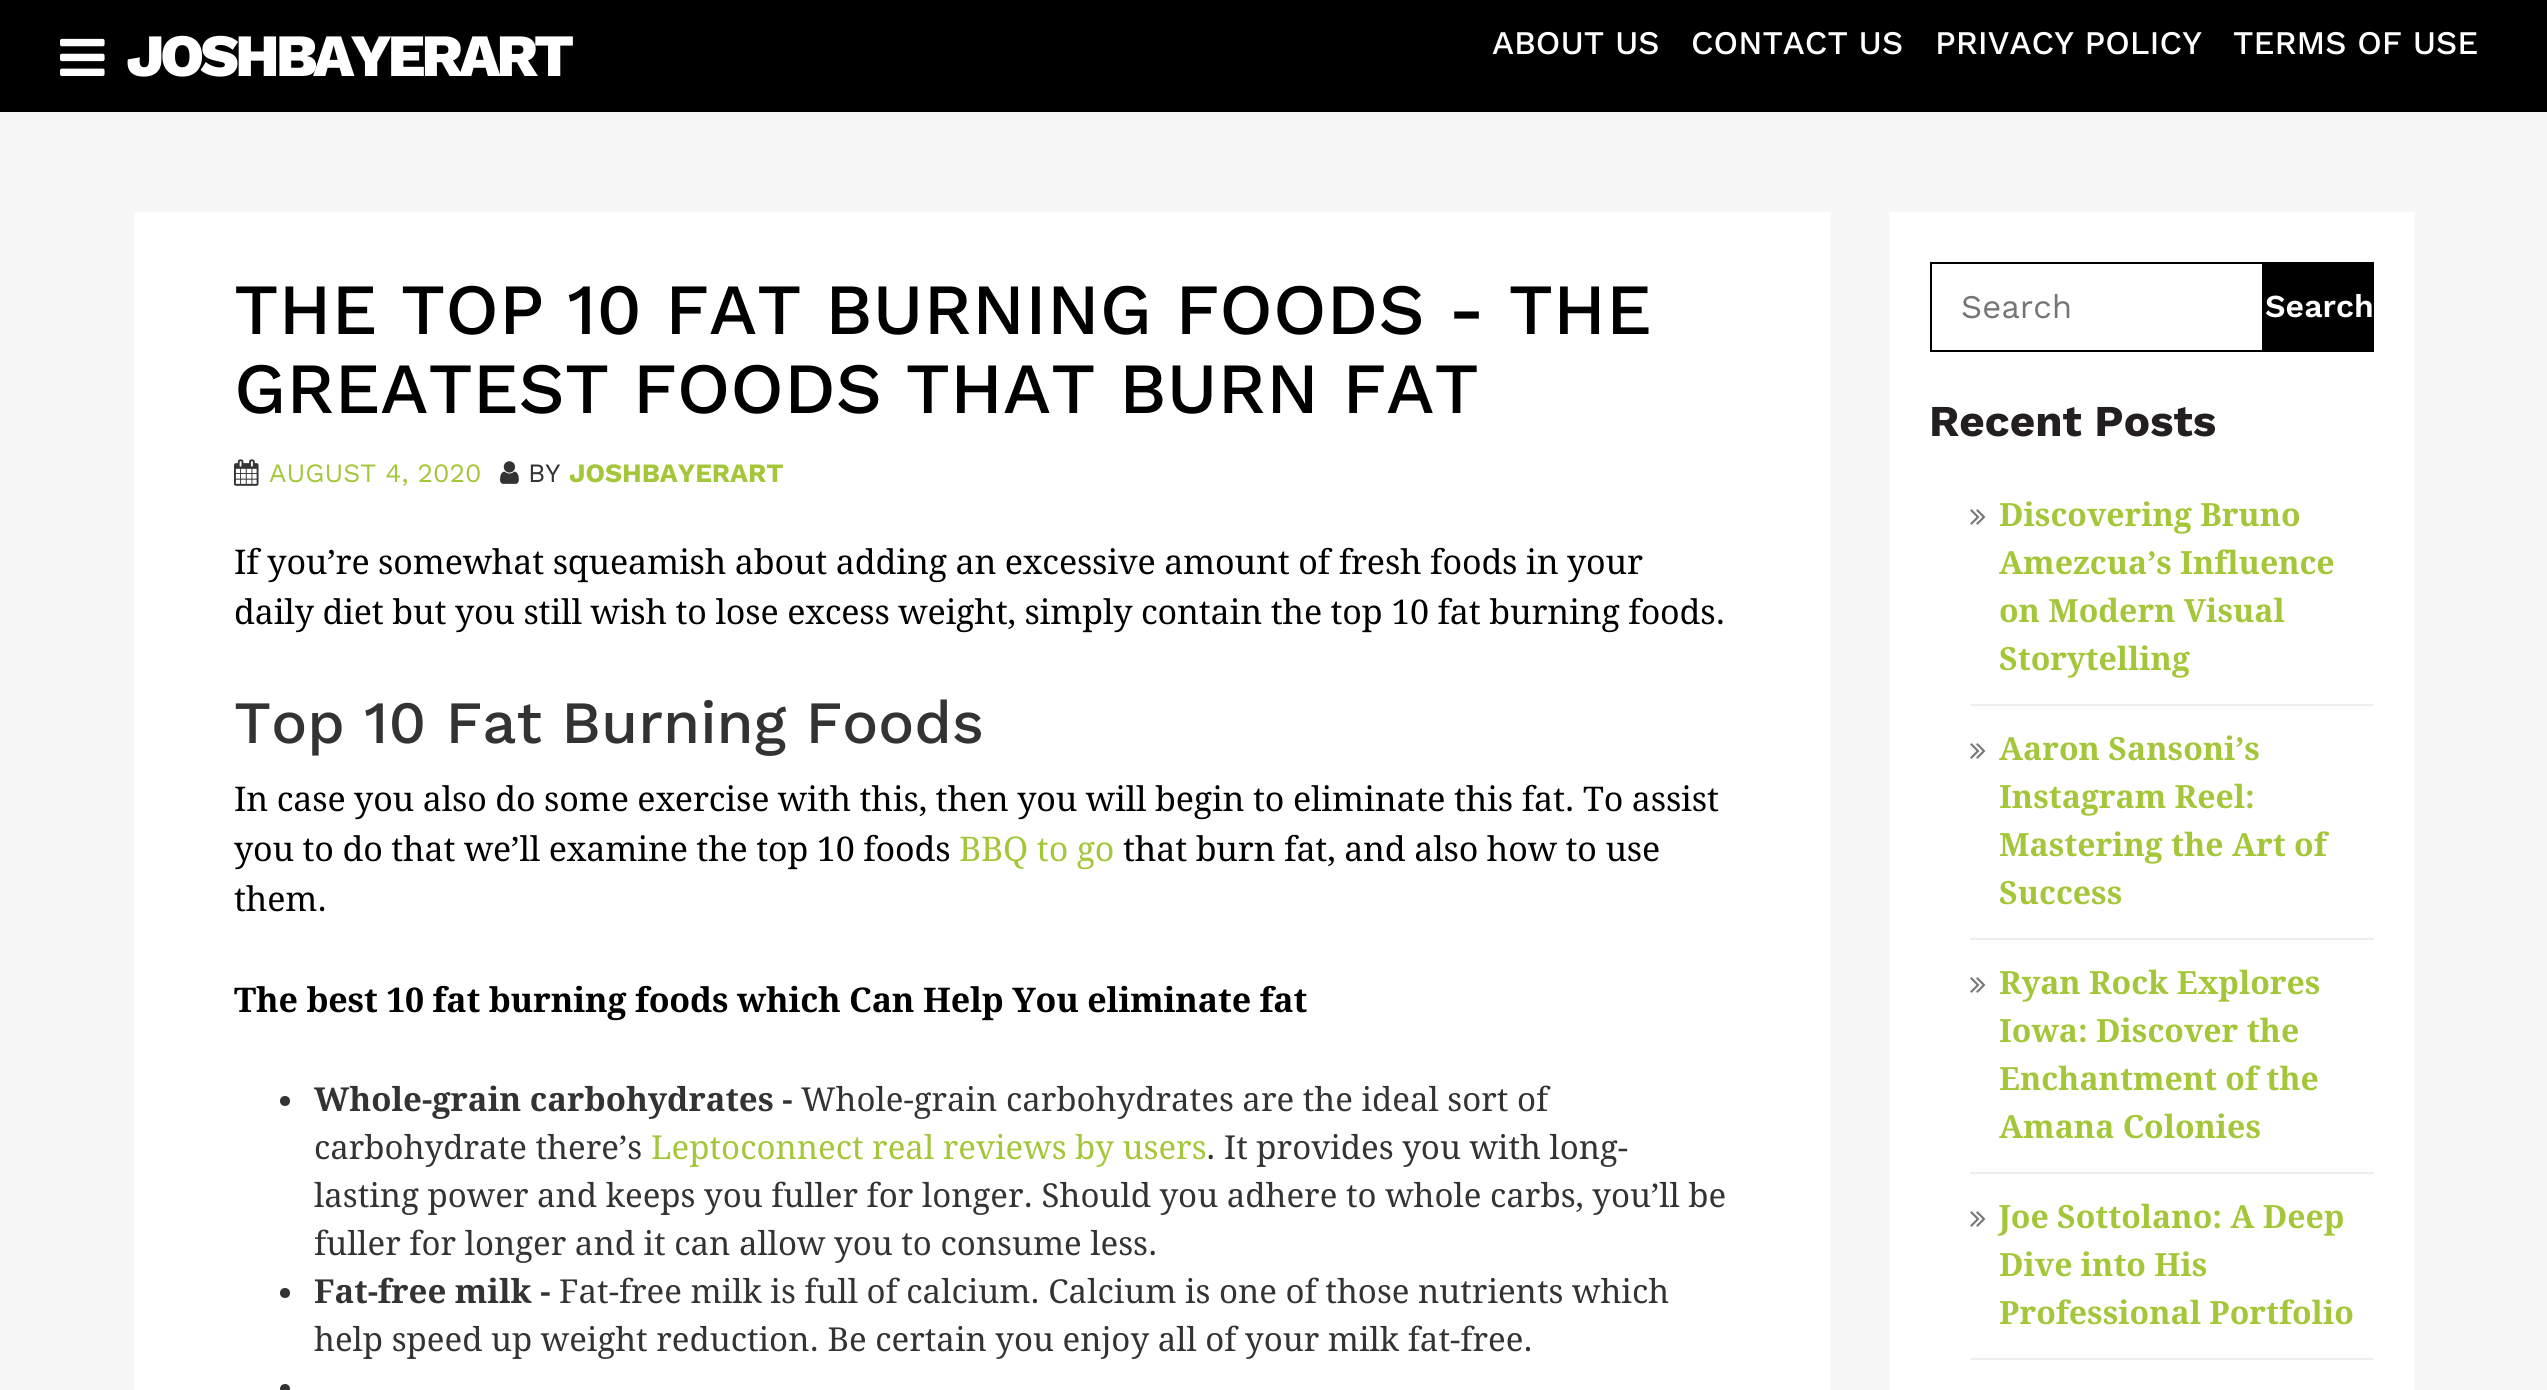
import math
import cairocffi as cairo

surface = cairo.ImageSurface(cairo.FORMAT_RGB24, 2547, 1390)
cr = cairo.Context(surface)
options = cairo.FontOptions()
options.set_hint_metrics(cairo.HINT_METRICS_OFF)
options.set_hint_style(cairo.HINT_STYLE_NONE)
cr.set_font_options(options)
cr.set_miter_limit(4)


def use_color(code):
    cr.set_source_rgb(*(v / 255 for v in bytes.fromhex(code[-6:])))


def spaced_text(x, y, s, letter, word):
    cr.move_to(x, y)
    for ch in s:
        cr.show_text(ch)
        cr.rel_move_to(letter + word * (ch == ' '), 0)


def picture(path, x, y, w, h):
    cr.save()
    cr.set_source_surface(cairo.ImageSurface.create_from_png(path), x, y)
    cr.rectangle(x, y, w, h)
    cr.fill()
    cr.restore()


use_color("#f7f7f7")
cr.paint()
use_color("#000000")
cr.rectangle(0, 0, 2547, 112)
cr.fill()
picture("img1.png", 60, 38, 45, 38)
cr.select_font_face("Work Sans ExtraBold")
cr.set_font_size(60)
use_color("#ffffff")
spaced_text(126, 76, "JOSHBAYERART", -4, 0)
cr.select_font_face("Work Sans Medium")
cr.set_font_size(33)
cr.move_to(1492, 54)
cr.show_text("ABOUT US")
cr.move_to(1691, 54)
cr.show_text("CONTACT US")
cr.move_to(1935, 54)
cr.show_text("PRIVACY POLICY")
cr.move_to(2233, 54)
cr.show_text("TERMS OF USE")
cr.rectangle(134, 212, 1696, 1178)
cr.fill()
cr.set_font_size(72)
use_color("#000000")
cr.move_to(234, 334)
cr.show_text("THE TOP 10 FAT BURNING FOODS - THE")
cr.move_to(234, 413)
cr.show_text("GREATEST FOODS THAT BURN FAT")
picture("img2.png", 234, 459, 25, 27)
cr.select_font_face("Work Sans")
cr.set_font_size(26.5)
use_color("#a4c639")
cr.move_to(269, 482)
cr.show_text("AUGUST 4, 2020")
picture("img3.png", 500, 461, 19, 23)
use_color("#333333")
cr.move_to(528, 482)
cr.show_text("BY")
cr.select_font_face("Work Sans", cairo.FONT_SLANT_NORMAL, cairo.FONT_WEIGHT_BOLD)
use_color("#a4c639")
cr.move_to(569, 482)
cr.show_text("JOSHBAYERART")
cr.select_font_face("Droid Serif")
cr.set_font_size(34)
use_color("#000000")
spaced_text(234, 574, "If you’re somewhat squeamish about adding an excessive amount of fresh foods in your", -0.17, 0)
spaced_text(234, 624, "daily diet but you still wish to lose excess weight, simply contain the top 10 fat burning foods.", -0.17, 0)
cr.select_font_face("Work Sans Medium")
cr.set_font_size(60)
use_color("#333333")
cr.move_to(234, 743)
cr.show_text("Top 10 Fat Burning Foods")
cr.select_font_face("Droid Serif")
cr.set_font_size(34)
use_color("#000000")
spaced_text(234, 811, "In case you also do some exercise with this, then you will begin to eliminate this fat. To assist", -0.17, 0)
spaced_text(234, 861, "you to do that we’ll examine the top 10 foods", -0.17, 0)
use_color("#a4c639")
spaced_text(959, 861, "BBQ to go", -0.17, 0)
use_color("#000000")
spaced_text(1123, 861, "that burn fat, and also how to use", -0.17, 0)
spaced_text(234, 911, "them.", -0.17, 0)
cr.select_font_face("Droid Serif", cairo.FONT_SLANT_NORMAL, cairo.FONT_WEIGHT_BOLD)
spaced_text(234, 1012, "The best 10 fat burning foods which Can Help You eliminate fat", -0.17, 0)
use_color("#333333")
cr.new_path()
cr.arc(285, 1101, 5, 0, 2 * math.pi)
cr.fill()
cr.set_font_size(33)
cr.move_to(314, 1111)
cr.show_text("Whole-grain carbohydrates -")
cr.select_font_face("Droid Serif")
cr.move_to(801, 1111)
cr.show_text("Whole-grain carbohydrates are the ideal sort of")
cr.move_to(314, 1159)
cr.show_text("carbohydrate there’s")
use_color("#a4c639")
cr.move_to(651, 1159)
cr.show_text("Leptoconnect real reviews by users")
use_color("#333333")
cr.move_to(1206, 1159)
cr.show_text(". It provides you with long-")
cr.move_to(314, 1207)
cr.show_text("lasting power and keeps you fuller for longer. Should you adhere to whole carbs, you’ll be")
cr.move_to(314, 1255)
cr.show_text("fuller for longer and it can allow you to consume less.")
cr.new_path()
cr.arc(285, 1293, 5, 0, 2 * math.pi)
cr.fill()
cr.select_font_face("Droid Serif", cairo.FONT_SLANT_NORMAL, cairo.FONT_WEIGHT_BOLD)
cr.move_to(314, 1303)
cr.show_text("Fat-free milk -")
cr.select_font_face("Droid Serif")
cr.move_to(559, 1303)
cr.show_text("Fat-free milk is full of calcium. Calcium is one of those nutrients which")
cr.move_to(314, 1351)
cr.show_text("help speed up weight reduction. Be certain you enjoy all of your milk fat-free.")
cr.new_path()
cr.arc(285, 1389, 5, 0, 2 * math.pi)
cr.fill()
use_color("#ffffff")
cr.rectangle(1890, 212, 524, 1178)
cr.fill()
use_color("#000000")
cr.rectangle(1930, 262, 332, 2)
cr.fill()
cr.rectangle(1930, 350, 332, 2)
cr.fill()
cr.rectangle(1930, 262, 2, 90)
cr.fill()
cr.select_font_face("Work Sans")
use_color("#757575")
cr.move_to(1961, 318)
cr.show_text("Search")
use_color("#000000")
cr.rectangle(2262, 262, 112, 90)
cr.fill()
cr.select_font_face("Work Sans SemiBold")
cr.set_font_size(32)
use_color("#ffffff")
cr.move_to(2265, 317)
cr.show_text("Search")
cr.select_font_face("Work Sans", cairo.FONT_SLANT_NORMAL, cairo.FONT_WEIGHT_BOLD)
cr.set_font_size(44)
use_color("#231f20")
cr.move_to(1929, 436)
cr.show_text("Recent Posts")
use_color("#eeeeee")
cr.rectangle(1970, 704, 404, 2)
cr.fill()
picture("img4.png", 1970, 509, 16, 16)
cr.select_font_face("Droid Serif", cairo.FONT_SLANT_NORMAL, cairo.FONT_WEIGHT_BOLD)
cr.set_font_size(32)
use_color("#a4c639")
cr.move_to(1999, 526)
cr.show_text("Discovering Bruno")
cr.move_to(1999, 574)
cr.show_text("Amezcua’s Influence")
cr.move_to(1999, 622)
cr.show_text("on Modern Visual")
cr.move_to(1999, 670)
cr.show_text("Storytelling")
use_color("#eeeeee")
cr.rectangle(1970, 938, 404, 2)
cr.fill()
picture("img4.png", 1970, 743, 16, 16)
use_color("#a4c639")
cr.move_to(1999, 760)
cr.show_text("Aaron Sansoni’s")
cr.move_to(1999, 808)
cr.show_text("Instagram Reel:")
cr.move_to(1999, 856)
cr.show_text("Mastering the Art of")
cr.move_to(1999, 904)
cr.show_text("Success")
use_color("#eeeeee")
cr.rectangle(1970, 1172, 404, 2)
cr.fill()
picture("img4.png", 1970, 977, 16, 16)
use_color("#a4c639")
cr.move_to(1999, 994)
cr.show_text("Ryan Rock Explores")
cr.move_to(1999, 1042)
cr.show_text("Iowa: Discover the")
cr.move_to(1999, 1090)
cr.show_text("Enchantment of the")
cr.move_to(1999, 1138)
cr.show_text("Amana Colonies")
use_color("#eeeeee")
cr.rectangle(1970, 1358, 404, 2)
cr.fill()
picture("img4.png", 1970, 1211, 16, 16)
use_color("#a4c639")
cr.move_to(1999, 1228)
cr.show_text("Joe Sottolano: A Deep")
cr.move_to(1999, 1276)
cr.show_text("Dive into His")
cr.move_to(1999, 1324)
cr.show_text("Professional Portfolio")
surface.write_to_png("result.png")
